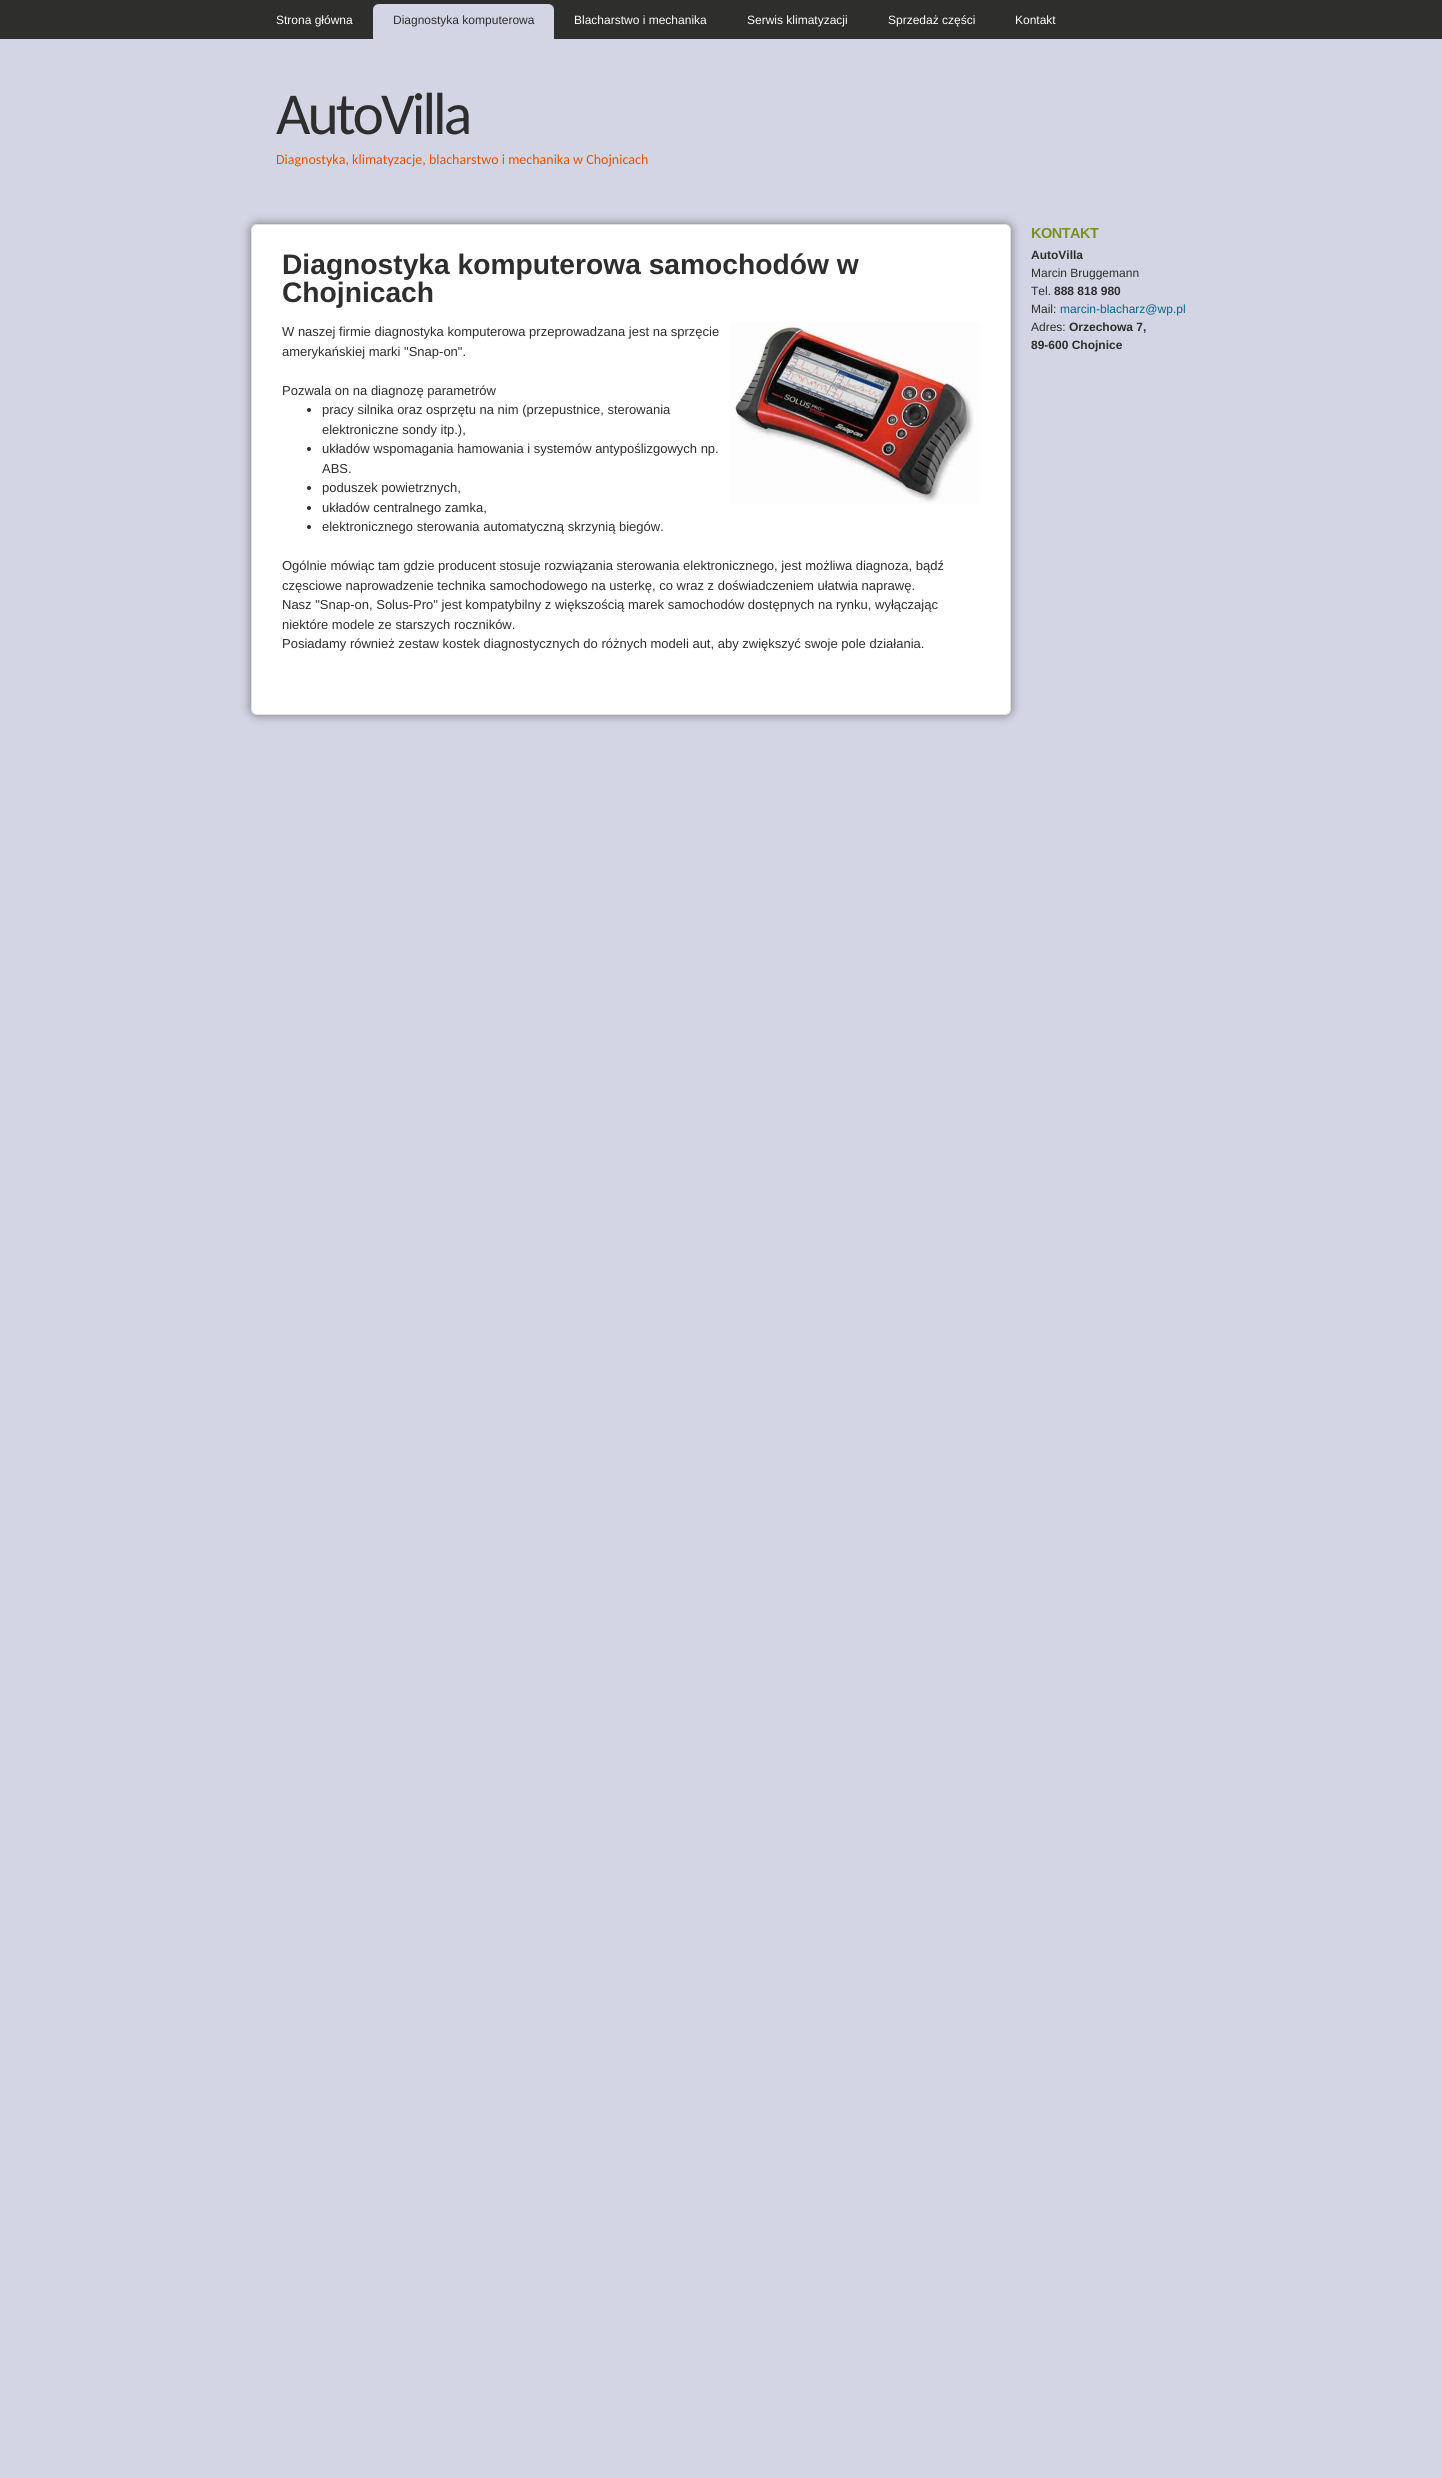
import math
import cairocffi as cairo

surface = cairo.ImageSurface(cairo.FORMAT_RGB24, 1442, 2478)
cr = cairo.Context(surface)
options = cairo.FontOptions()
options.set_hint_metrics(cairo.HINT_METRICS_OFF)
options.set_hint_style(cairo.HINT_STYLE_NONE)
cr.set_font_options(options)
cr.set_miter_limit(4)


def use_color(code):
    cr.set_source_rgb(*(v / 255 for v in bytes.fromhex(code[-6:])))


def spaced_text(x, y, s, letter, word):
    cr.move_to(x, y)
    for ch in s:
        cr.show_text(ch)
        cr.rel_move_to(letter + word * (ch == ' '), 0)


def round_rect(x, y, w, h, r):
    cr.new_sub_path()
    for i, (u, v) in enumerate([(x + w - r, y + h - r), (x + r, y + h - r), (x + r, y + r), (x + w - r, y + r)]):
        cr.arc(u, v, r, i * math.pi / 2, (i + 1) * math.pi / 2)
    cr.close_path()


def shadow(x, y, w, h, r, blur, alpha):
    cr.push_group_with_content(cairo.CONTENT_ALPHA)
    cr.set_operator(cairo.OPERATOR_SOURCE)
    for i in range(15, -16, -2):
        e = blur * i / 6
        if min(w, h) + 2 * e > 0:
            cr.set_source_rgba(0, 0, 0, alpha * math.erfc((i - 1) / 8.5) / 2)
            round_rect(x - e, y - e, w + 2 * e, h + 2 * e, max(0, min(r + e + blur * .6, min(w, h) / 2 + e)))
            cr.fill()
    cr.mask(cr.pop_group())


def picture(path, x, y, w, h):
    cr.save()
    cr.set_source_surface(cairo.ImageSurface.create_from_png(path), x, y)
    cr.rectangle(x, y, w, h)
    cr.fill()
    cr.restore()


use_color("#d3d5e4")
cr.paint()
use_color("#2e2e2d")
cr.rectangle(0, 0, 1442, 39)
cr.fill()
cr.select_font_face("Liberation Sans")
cr.set_font_size(12)
use_color("#ffffff")
cr.move_to(276, 24)
cr.show_text("Strona główna")
use_color("#d3d5e4")
cr.new_path()
cr.move_to(379, 4)
cr.line_to(548, 4)
cr.curve_to(551.5, 4, 554, 6.5, 554, 10)
cr.line_to(554, 39)
cr.line_to(373, 39)
cr.line_to(373, 10)
cr.curve_to(373, 6.5, 375.5, 4, 379, 4)
cr.close_path()
cr.fill()
use_color("#2e2e2e")
cr.move_to(393, 24)
cr.show_text("Diagnostyka komputerowa")
use_color("#ffffff")
cr.move_to(574, 24)
cr.show_text("Blacharstwo i mechanika")
cr.move_to(747, 24)
cr.show_text("Serwis klimatyzacji")
cr.move_to(888, 24)
cr.show_text("Sprzedaż części")
cr.move_to(1015, 24)
cr.show_text("Kontakt")
cr.select_font_face("Carlito")
cr.set_font_size(59.5)
use_color("#2e2e2e")
spaced_text(276, 134, "AutoVilla", -3, 0)
cr.set_font_size(14)
use_color("#e25400")
cr.move_to(276, 164)
cr.show_text("Diagnostyka, klimatyzacje, blacharstwo i mechanika w Chojnicach")
use_color("#4c4c4c")
shadow(251, 224, 760, 491, 6, 5, 0.7)
use_color("#ffffff")
round_rect(251.5, 224.5, 759, 490, 5.5)
cr.fill_preserve()
use_color("#e1e1e1")
cr.set_line_width(1)
cr.stroke()
cr.select_font_face("Liberation Sans", cairo.FONT_SLANT_NORMAL, cairo.FONT_WEIGHT_BOLD)
cr.set_font_size(28.2)
use_color("#2e2e2e")
cr.move_to(282, 274)
cr.show_text("Diagnostyka komputerowa samochodów w")
cr.move_to(282, 302)
cr.show_text("Chojnicach")
cr.select_font_face("Liberation Sans")
cr.set_font_size(13)
cr.move_to(282, 336)
cr.show_text("W naszej firmie diagnostyka komputerowa przeprowadzana jest na sprzęcie")
picture("img1.png", 730, 322, 250, 182)
cr.move_to(282, 356)
cr.show_text("amerykańskiej marki \"Snap-on\".")
cr.move_to(282, 395)
cr.show_text("Pozwala on na diagnozę parametrów")
cr.new_path()
cr.arc(309, 410, 2, 0, 2 * math.pi)
cr.fill()
cr.move_to(322, 414)
cr.show_text("pracy silnika oraz osprzętu na nim (przepustnice, sterowania")
cr.move_to(322, 434)
cr.show_text("elektroniczne sondy itp.),")
cr.new_path()
cr.arc(309, 449, 2, 0, 2 * math.pi)
cr.fill()
cr.move_to(322, 453)
cr.show_text("układów wspomagania hamowania i systemów antypoślizgowych np.")
cr.move_to(322, 473)
cr.show_text("ABS.")
cr.new_path()
cr.arc(309, 488, 2, 0, 2 * math.pi)
cr.fill()
cr.move_to(322, 492)
cr.show_text("poduszek powietrznych,")
cr.new_path()
cr.arc(309, 508, 2, 0, 2 * math.pi)
cr.fill()
cr.move_to(322, 512)
cr.show_text("układów centralnego zamka,")
cr.new_path()
cr.arc(309, 527, 2, 0, 2 * math.pi)
cr.fill()
cr.move_to(322, 531)
cr.show_text("elektronicznego sterowania automatyczną skrzynią biegów.")
cr.move_to(282, 570)
cr.show_text("Ogólnie mówiąc tam gdzie producent stosuje rozwiązania sterowania elektronicznego, jest możliwa diagnoza, bądź")
cr.move_to(282, 590)
cr.show_text("częsciowe naprowadzenie technika samochodowego na usterkę, co wraz z doświadczeniem ułatwia naprawę.")
cr.move_to(282, 609)
cr.show_text("Nasz \"Snap-on, Solus-Pro\" jest kompatybilny z większością marek samochodów dostępnych na rynku, wyłączając")
cr.move_to(282, 629)
cr.show_text("niektóre modele ze starszych roczników.")
cr.move_to(282, 648)
cr.show_text("Posiadamy również zestaw kostek diagnostycznych do różnych modeli aut, aby zwiększyć swoje pole działania.")
cr.select_font_face("Liberation Sans", cairo.FONT_SLANT_NORMAL, cairo.FONT_WEIGHT_BOLD)
cr.set_font_size(14.5)
use_color("#779125")
spaced_text(1031, 238, "KONTAKT", -0.5, 0)
cr.set_font_size(12)
use_color("#2e2e2e")
cr.move_to(1031, 259)
cr.show_text("AutoVilla")
cr.select_font_face("Liberation Sans")
cr.move_to(1031, 277)
cr.show_text("Marcin Bruggemann")
cr.move_to(1031, 295)
cr.show_text("Tel.")
cr.select_font_face("Liberation Sans", cairo.FONT_SLANT_NORMAL, cairo.FONT_WEIGHT_BOLD)
cr.move_to(1054, 295)
cr.show_text("888 818 980")
cr.select_font_face("Liberation Sans")
cr.move_to(1031, 313)
cr.show_text("Mail:")
use_color("#086782")
cr.move_to(1060, 313)
cr.show_text("marcin-blacharz@wp.pl")
use_color("#2e2e2e")
cr.move_to(1031, 331)
cr.show_text("Adres:")
cr.select_font_face("Liberation Sans", cairo.FONT_SLANT_NORMAL, cairo.FONT_WEIGHT_BOLD)
cr.move_to(1069, 331)
cr.show_text("Orzechowa 7,")
cr.move_to(1031, 349)
cr.show_text("89-600 Chojnice")
surface.write_to_png("result.png")
